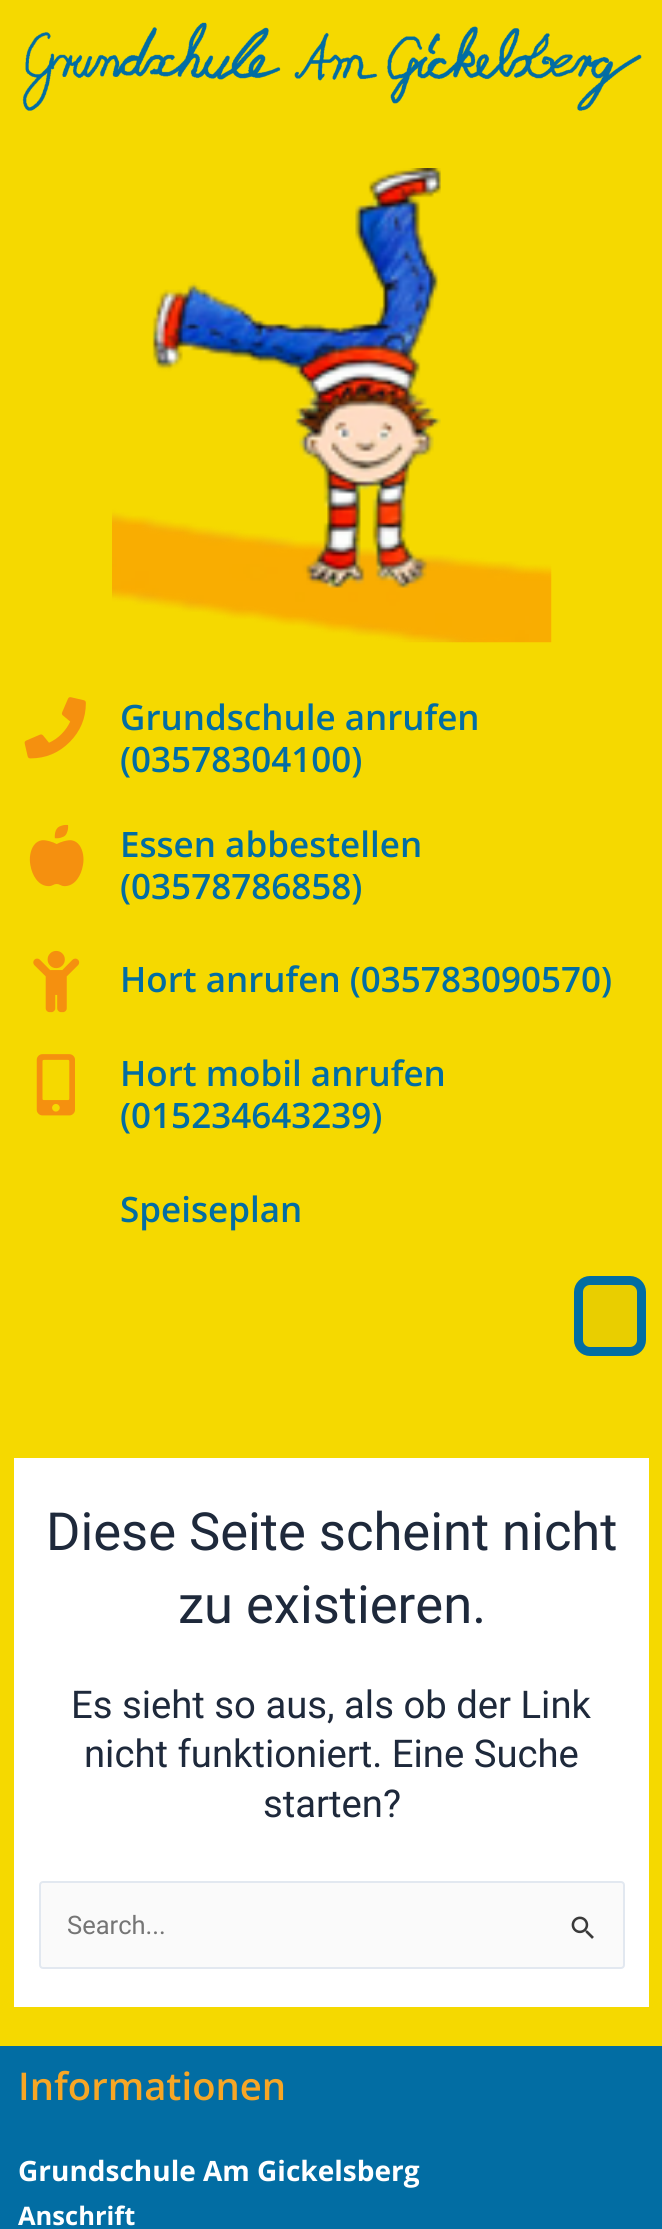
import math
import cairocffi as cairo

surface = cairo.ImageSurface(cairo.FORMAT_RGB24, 662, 2229)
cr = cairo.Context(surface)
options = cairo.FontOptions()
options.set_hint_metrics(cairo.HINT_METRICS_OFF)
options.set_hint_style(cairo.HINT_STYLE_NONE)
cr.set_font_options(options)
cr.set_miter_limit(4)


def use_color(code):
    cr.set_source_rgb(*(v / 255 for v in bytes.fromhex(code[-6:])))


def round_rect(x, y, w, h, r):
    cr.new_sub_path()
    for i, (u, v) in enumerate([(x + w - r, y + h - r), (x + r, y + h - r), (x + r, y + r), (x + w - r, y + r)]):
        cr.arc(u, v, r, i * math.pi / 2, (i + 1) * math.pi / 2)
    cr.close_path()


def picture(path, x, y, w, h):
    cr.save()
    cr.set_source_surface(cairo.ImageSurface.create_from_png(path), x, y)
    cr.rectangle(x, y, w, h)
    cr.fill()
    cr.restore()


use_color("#f5d900")
cr.paint()
picture("img1.png", 22, 22, 620, 89)
picture("img2.png", 112, 168, 440, 475)
picture("img3.png", 24, 697, 62, 62)
cr.select_font_face("Open Sans SemiBold")
cr.set_font_size(35)
use_color("#026da3")
cr.move_to(120, 730)
cr.show_text("Grundschule anrufen")
cr.move_to(120, 772)
cr.show_text("(03578304100)")
picture("img4.png", 29, 824, 55, 63)
cr.move_to(120, 857)
cr.show_text("Essen abbestellen")
cr.move_to(120, 899)
cr.show_text("(03578786858)")
picture("img5.png", 33, 950, 47, 63)
cr.move_to(120, 992)
cr.show_text("Hort anrufen (035783090570)")
picture("img6.png", 36, 1054, 39, 62)
cr.move_to(120, 1086)
cr.show_text("Hort mobil anrufen")
cr.move_to(120, 1128)
cr.show_text("(015234643239)")
cr.move_to(120, 1222)
cr.show_text("Speiseplan")
use_color("#e9ce00")
round_rect(578.5, 1280.5, 63, 71, 11.5)
cr.fill_preserve()
use_color("#026da3")
cr.set_line_width(9)
cr.stroke()
use_color("#ffffff")
cr.rectangle(14, 1458, 635, 549)
cr.fill()
cr.select_font_face("Roboto")
cr.set_font_size(52.5)
use_color("#1e293b")
cr.move_to(46, 1550)
cr.show_text("Diese Seite scheint nicht")
cr.move_to(178, 1623)
cr.show_text("zu existieren.")
cr.set_font_size(38.25)
cr.move_to(71, 1718)
cr.show_text("Es sieht so aus, als ob der Link")
cr.move_to(84, 1767)
cr.show_text("nicht funktioniert. Eine Suche")
cr.move_to(263, 1817)
cr.show_text("starten?")
use_color("#fafafa")
round_rect(40, 1882, 584, 86, 3)
cr.fill_preserve()
use_color("#e2e8f0")
cr.set_line_width(2)
cr.stroke()
cr.set_font_size(25.5)
use_color("#757575")
cr.move_to(67, 1934)
cr.show_text("Search...")
picture("img7.png", 571, 1916, 23, 23)
use_color("#026da3")
cr.rectangle(0, 2046, 662, 183)
cr.fill()
cr.select_font_face("Open Sans SemiBold")
cr.set_font_size(38.25)
use_color("#f7a625")
cr.move_to(18, 2100)
cr.show_text("Informationen")
cr.select_font_face("Open Sans", cairo.FONT_SLANT_NORMAL, cairo.FONT_WEIGHT_BOLD)
cr.set_font_size(28)
use_color("#ffffff")
cr.move_to(18, 2181)
cr.show_text("Grundschule Am Gickelsberg")
cr.set_font_size(25.5)
cr.move_to(18, 2225)
cr.show_text("Anschrift")
surface.write_to_png("result.png")
